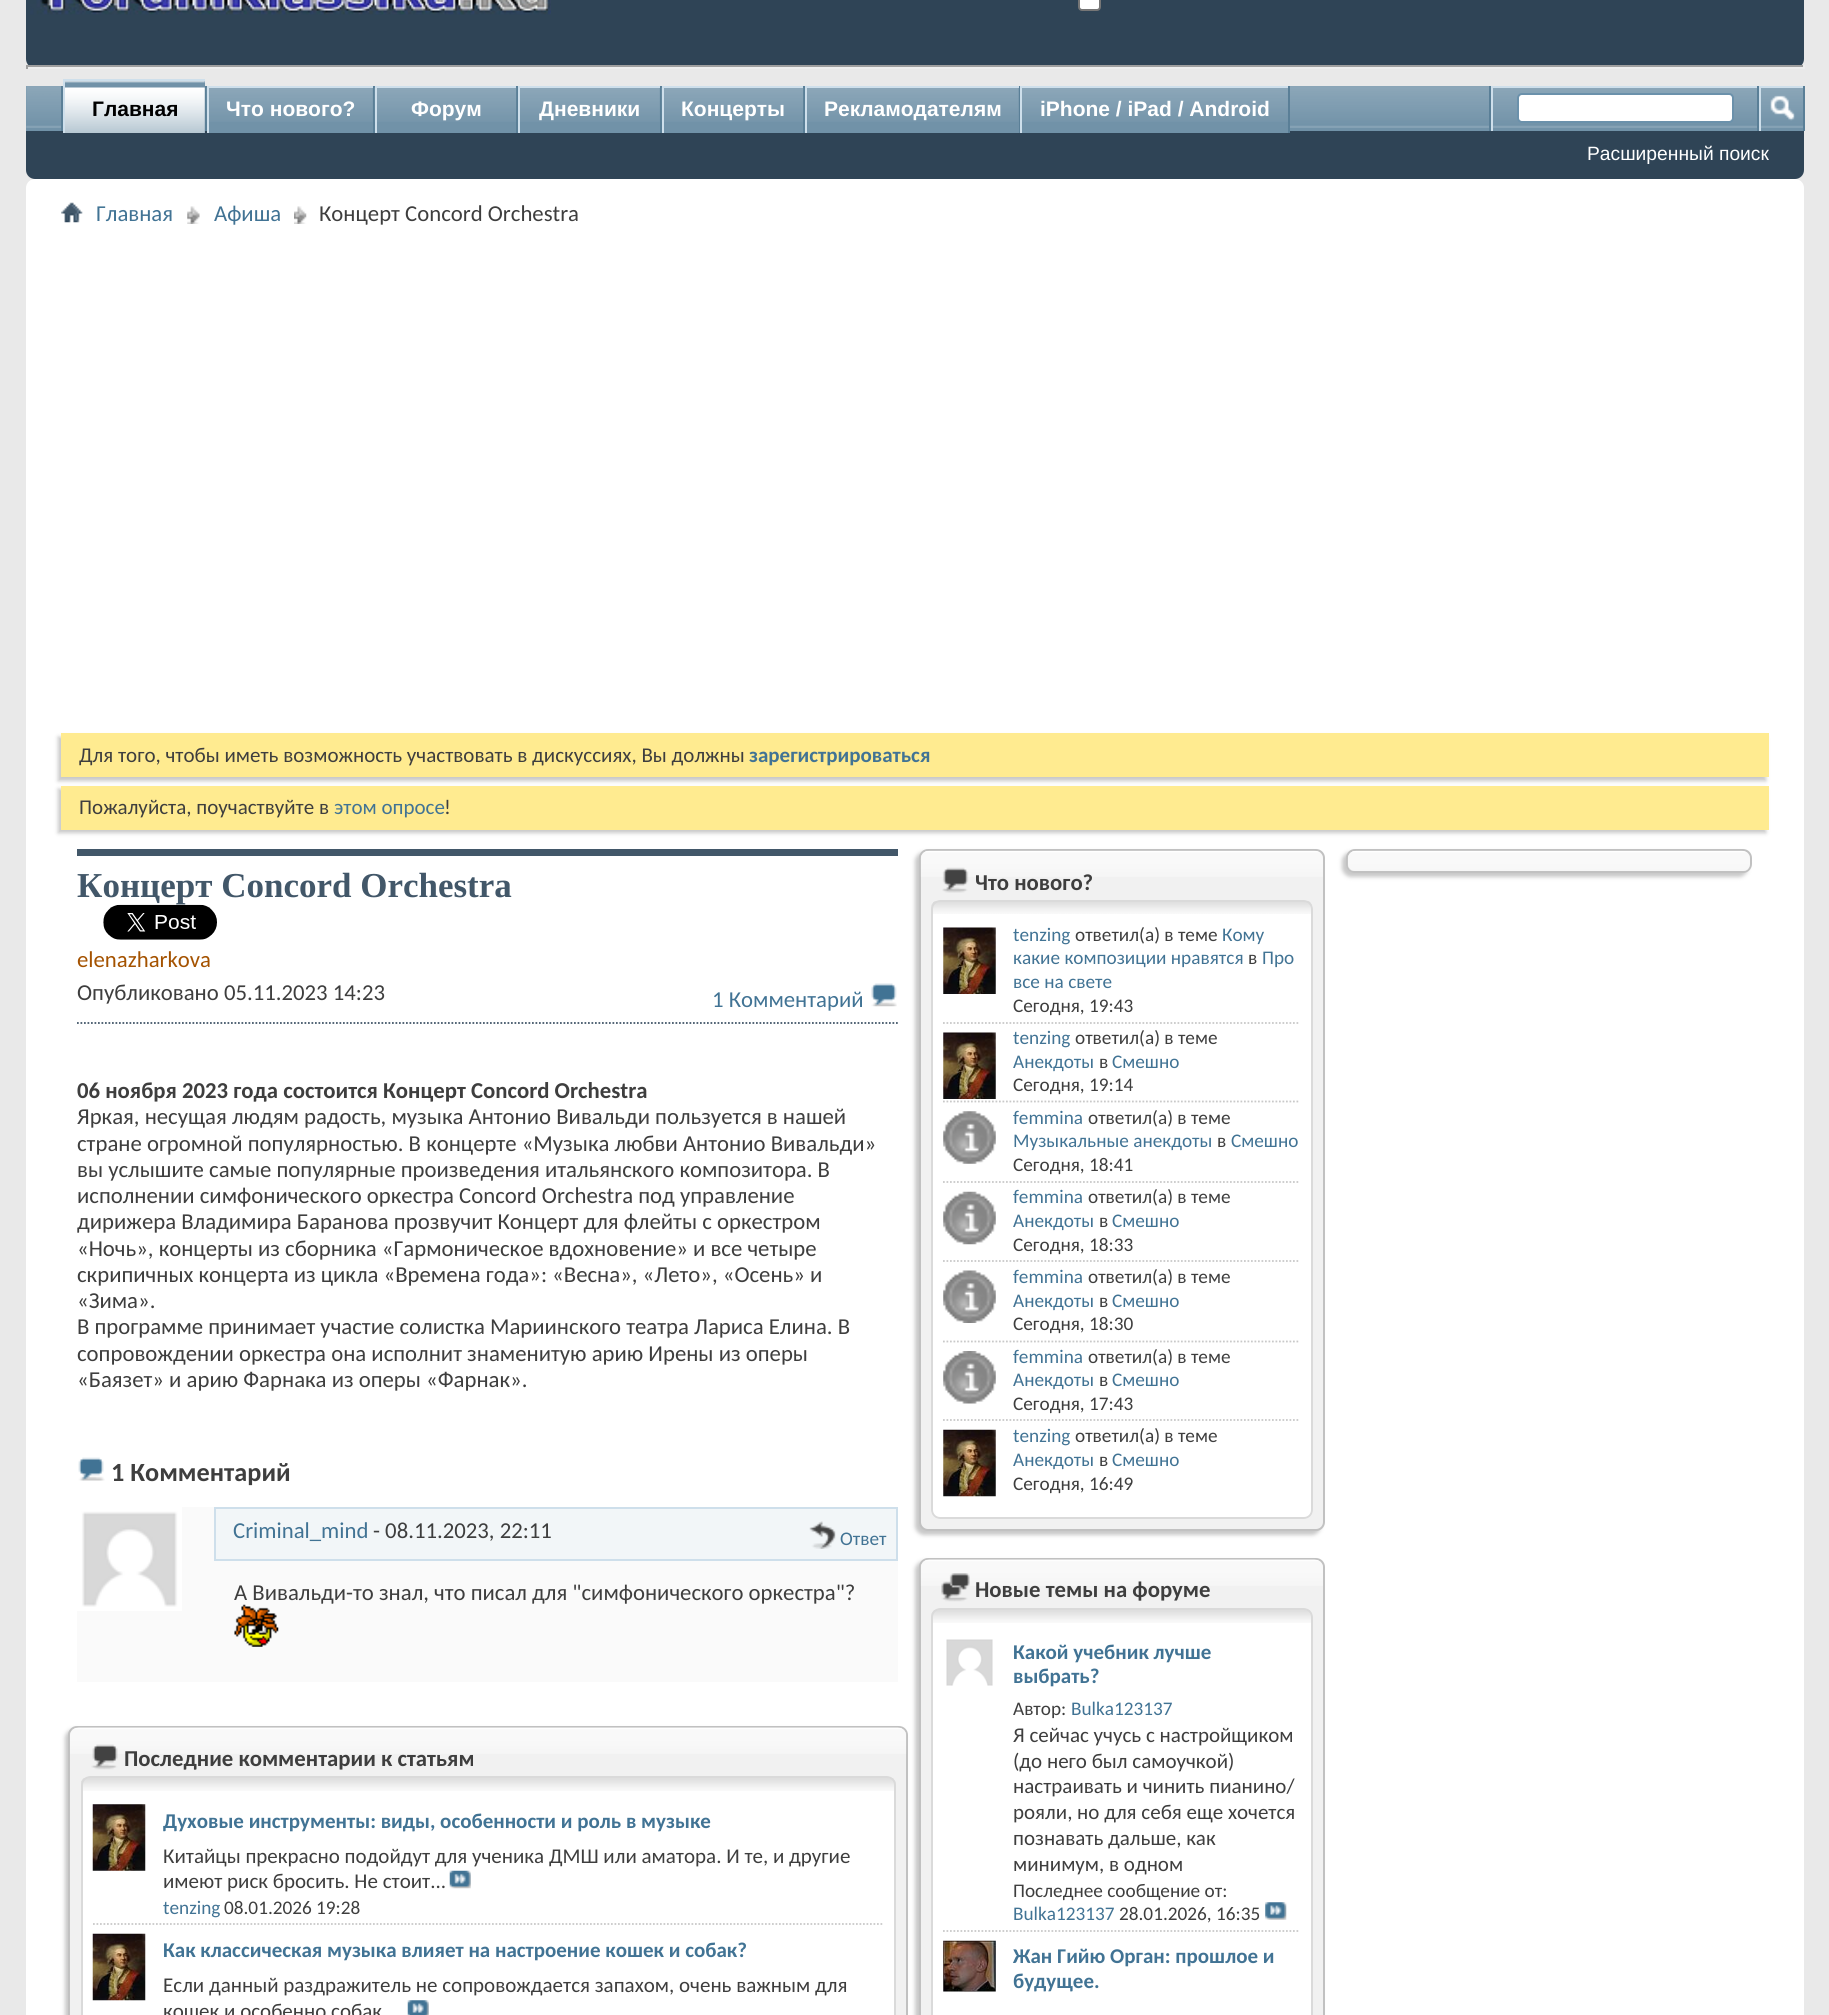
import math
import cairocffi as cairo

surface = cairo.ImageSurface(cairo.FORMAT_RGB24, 1829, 2015)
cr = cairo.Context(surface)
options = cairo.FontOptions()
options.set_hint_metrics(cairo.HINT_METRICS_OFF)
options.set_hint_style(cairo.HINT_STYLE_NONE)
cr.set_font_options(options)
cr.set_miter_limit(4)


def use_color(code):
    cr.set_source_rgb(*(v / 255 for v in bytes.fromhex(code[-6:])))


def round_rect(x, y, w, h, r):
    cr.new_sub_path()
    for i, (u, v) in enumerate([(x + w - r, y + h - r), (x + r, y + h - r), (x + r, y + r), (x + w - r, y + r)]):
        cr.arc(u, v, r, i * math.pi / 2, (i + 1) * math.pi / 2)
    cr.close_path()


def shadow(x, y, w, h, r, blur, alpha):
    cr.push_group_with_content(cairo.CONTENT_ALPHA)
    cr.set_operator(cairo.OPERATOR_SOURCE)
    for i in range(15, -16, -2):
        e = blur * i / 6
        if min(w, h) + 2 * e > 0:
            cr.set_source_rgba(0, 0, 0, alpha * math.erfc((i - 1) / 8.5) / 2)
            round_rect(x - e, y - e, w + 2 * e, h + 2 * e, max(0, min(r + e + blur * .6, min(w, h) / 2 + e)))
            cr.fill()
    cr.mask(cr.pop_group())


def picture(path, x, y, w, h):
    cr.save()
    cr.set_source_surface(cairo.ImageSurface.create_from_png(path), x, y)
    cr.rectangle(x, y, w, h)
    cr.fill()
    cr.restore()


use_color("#e9e9e9")
cr.paint()
use_color("#2f4456")
cr.new_path()
cr.move_to(26, -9)
cr.line_to(1804, -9)
cr.line_to(1804, 59)
cr.curve_to(1804, 64, 1800, 68, 1795, 68)
cr.line_to(35, 68)
cr.curve_to(30, 68, 26, 64, 26, 59)
cr.close_path()
cr.fill()
picture("img1.png", 30, 0, 521, 15)
use_color("#ffffff")
round_rect(1079, -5, 21, 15, 3)
cr.fill_preserve()
use_color("#767676")
cr.stroke()
use_color("#9f9f9f")
cr.rectangle(26, 65, 1778, 2)
cr.fill()
use_color("#eeeeee")
cr.rectangle(1803, 65, 2, 4)
cr.fill()
cr.rectangle(26, 67, 1778, 2)
cr.fill()
use_color("#9f9f9f")
cr.rectangle(26, 65, 2, 4)
cr.fill()
use_color("#2f4456")
cr.new_path()
cr.move_to(26, 86)
cr.line_to(1804, 86)
cr.line_to(1804, 170)
cr.curve_to(1804, 175, 1800, 179, 1795, 179)
cr.line_to(35, 179)
cr.curve_to(30, 179, 26, 175, 26, 170)
cr.close_path()
cr.fill()
use_color("#7192a8")
cr.rectangle(26, 86, 1777, 45)
cr.fill()
picture("img2.png", 26, 86, 1777, 42)
use_color("#5a7f97")
cr.rectangle(205, 86, 2, 45)
cr.fill()
cr.rectangle(61, 86, 2, 45)
cr.fill()
use_color("#7192a8")
cr.rectangle(65, 81, 140, 52)
cr.fill()
picture("img3.png", 65, 81, 140, 52)
use_color("#cedfeb")
cr.rectangle(63, 79, 142, 2)
cr.fill()
cr.rectangle(63, 79, 2, 54)
cr.fill()
cr.select_font_face("Liberation Sans", cairo.FONT_SLANT_NORMAL, cairo.FONT_WEIGHT_BOLD)
cr.set_font_size(21)
use_color("#000000")
cr.move_to(92, 116)
cr.show_text("Главная")
use_color("#5a7f97")
cr.rectangle(373, 86, 2, 47)
cr.fill()
use_color("#7192a8")
cr.rectangle(209, 88, 164, 45)
cr.fill()
picture("img4.png", 206, 87, 167, 35)
use_color("#cedfeb")
cr.rectangle(207, 86, 166, 2)
cr.fill()
cr.rectangle(207, 86, 2, 47)
cr.fill()
use_color("#ffffff")
cr.move_to(226, 116)
cr.show_text("Что нового?")
use_color("#5a7f97")
cr.rectangle(516, 86, 2, 47)
cr.fill()
use_color("#7192a8")
cr.rectangle(377, 88, 139, 45)
cr.fill()
picture("img5.png", 374, 87, 143, 35)
use_color("#cedfeb")
cr.rectangle(375, 86, 141, 2)
cr.fill()
cr.rectangle(375, 86, 2, 47)
cr.fill()
use_color("#ffffff")
cr.move_to(411, 116)
cr.show_text("Форум")
use_color("#5a7f97")
cr.rectangle(660, 86, 2, 47)
cr.fill()
use_color("#7192a8")
cr.rectangle(520, 88, 140, 45)
cr.fill()
picture("img6.png", 520, 88, 140, 34)
use_color("#cedfeb")
cr.rectangle(518, 86, 142, 2)
cr.fill()
cr.rectangle(518, 86, 2, 47)
cr.fill()
use_color("#ffffff")
cr.move_to(539, 116)
cr.show_text("Дневники")
use_color("#5a7f97")
cr.rectangle(803, 86, 2, 47)
cr.fill()
use_color("#7192a8")
cr.rectangle(664, 88, 139, 45)
cr.fill()
picture("img5.png", 661, 87, 143, 35)
use_color("#cedfeb")
cr.rectangle(662, 86, 141, 2)
cr.fill()
cr.rectangle(662, 86, 2, 47)
cr.fill()
use_color("#ffffff")
cr.move_to(681, 116)
cr.show_text("Концерты")
use_color("#5a7f97")
cr.rectangle(1019, 86, 1, 47)
cr.fill()
use_color("#7192a8")
cr.rectangle(807, 88, 212, 45)
cr.fill()
picture("img7.png", 807, 88, 212, 34)
use_color("#cedfeb")
cr.rectangle(805, 86, 214, 2)
cr.fill()
cr.rectangle(805, 86, 2, 47)
cr.fill()
use_color("#ffffff")
cr.move_to(824, 116)
cr.show_text("Рекламодателям")
use_color("#5a7f97")
cr.rectangle(1288, 86, 2, 47)
cr.fill()
use_color("#7192a8")
cr.rectangle(1022, 88, 266, 45)
cr.fill()
picture("img8.png", 1022, 88, 266, 34)
use_color("#cedfeb")
cr.rectangle(1020, 86, 268, 2)
cr.fill()
cr.rectangle(1020, 86, 2, 47)
cr.fill()
use_color("#ffffff")
cr.move_to(1040, 116)
cr.show_text("iPhone / iPad / Android")
use_color("#5a7f97")
cr.rectangle(1489, 86, 2, 45)
cr.fill()
use_color("#cedfeb")
cr.rectangle(1491, 86, 266, 2)
cr.fill()
cr.rectangle(1491, 86, 2, 45)
cr.fill()
use_color("#ffffff")
round_rect(1518, 94, 215, 28, 4)
cr.fill_preserve()
use_color("#6b91ab")
cr.stroke()
use_color("#5a7f97")
cr.rectangle(1803, 86, 2, 45)
cr.fill()
cr.rectangle(1757, 86, 2, 45)
cr.fill()
use_color("#cedfeb")
cr.rectangle(1759, 86, 44, 2)
cr.fill()
cr.rectangle(1759, 86, 2, 45)
cr.fill()
picture("img9.png", 1770, 95, 25, 26)
cr.select_font_face("Liberation Sans")
cr.set_font_size(19.25)
use_color("#ffffff")
cr.move_to(1587, 160)
cr.show_text("Расширенный поиск")
round_rect(26, 179, 1778, 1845, 9)
cr.fill()
picture("img10.png", 61, 202, 22, 21)
picture("img11.png", 187, 206, 13, 18)
cr.select_font_face("Carlito")
cr.set_font_size(22.75)
use_color("#417394")
cr.move_to(96, 221)
cr.show_text("Главная")
picture("img12.png", 294, 206, 13, 18)
cr.move_to(214, 221)
cr.show_text("Афиша")
use_color("#3e3e3e")
cr.move_to(319, 221)
cr.show_text("Концерт Concord Orchestra")
use_color("#c8c8c8")
shadow(58, 737, 1708, 44, 0, 2, 1)
use_color("#ffeb90")
cr.rectangle(61, 733, 1708, 44)
cr.fill()
cr.set_font_size(21)
use_color("#3e3e3e")
cr.move_to(79, 762)
cr.show_text("Для того, чтобы иметь возможность участвовать в дискуссиях, Вы должны")
cr.select_font_face("Carlito", cairo.FONT_SLANT_NORMAL, cairo.FONT_WEIGHT_BOLD)
use_color("#417394")
cr.move_to(749, 762)
cr.show_text("зарегистрироваться")
use_color("#c8c8c8")
shadow(58, 789, 1708, 44, 0, 2, 1)
use_color("#ffeb90")
cr.rectangle(61, 786, 1708, 44)
cr.fill()
cr.select_font_face("Carlito")
use_color("#3e3e3e")
cr.move_to(79, 814)
cr.show_text("Пожалуйста, поучаствуйте в")
use_color("#417394")
cr.move_to(334, 814)
cr.show_text("этом опросе")
use_color("#3e3e3e")
cr.move_to(444, 814)
cr.show_text("!")
use_color("#425769")
cr.rectangle(77, 849, 821, 7)
cr.fill()
cr.select_font_face("Liberation Serif", cairo.FONT_SLANT_NORMAL, cairo.FONT_WEIGHT_BOLD)
cr.set_font_size(35)
cr.move_to(77, 897)
cr.show_text("Концерт Concord Orchestra")
cr.new_path()
cr.move_to(77, 1023)
cr.line_to(898, 1023)
cr.set_line_width(1.8)
cr.set_dash([1.75, 1.75])
cr.stroke()
picture("img13.png", 103, 904, 114, 36)
cr.select_font_face("Carlito")
cr.set_font_size(22.75)
use_color("#a45200")
cr.move_to(77, 967)
cr.show_text("elenazharkova")
use_color("#3e3e3e")
cr.move_to(77, 1000)
cr.show_text("Опубликовано 05.11.2023 14:23")
use_color("#417394")
cr.move_to(712, 1007)
cr.show_text("1 Комментарий")
picture("img14.png", 871, 983, 26, 24)
cr.select_font_face("Carlito", cairo.FONT_SLANT_NORMAL, cairo.FONT_WEIGHT_BOLD)
use_color("#3e3e3e")
cr.move_to(77, 1098)
cr.show_text("06 ноября 2023 года состоится Концерт Concord Orchestra")
cr.select_font_face("Carlito")
cr.move_to(77, 1124)
cr.show_text("Яркая, несущая людям радость, музыка Антонио Вивальди пользуется в нашей")
cr.move_to(77, 1151)
cr.show_text("стране огромной популярностью. В концерте «Музыка любви Антонио Вивальди»")
cr.move_to(77, 1177)
cr.show_text("вы услышите самые популярные произведения итальянского композитора. В")
cr.move_to(77, 1203)
cr.show_text("исполнении симфонического оркестра Concord Orchestra под управление")
cr.move_to(77, 1229)
cr.show_text("дирижера Владимира Баранова прозвучит Концерт для флейты с оркестром")
cr.move_to(77, 1256)
cr.show_text("«Ночь», концерты из сборника «Гармоническое вдохновение» и все четыре")
cr.move_to(77, 1282)
cr.show_text("скрипичных концерта из цикла «Времена года»: «Весна», «Лето», «Осень» и")
cr.move_to(77, 1308)
cr.show_text("«Зима».")
cr.move_to(77, 1334)
cr.show_text("В программе принимает участие солистка Мариинского театра Лариса Елина. В")
cr.move_to(77, 1361)
cr.show_text("сопровождении оркестра она исполнит знаменитую арию Ирены из оперы")
cr.move_to(77, 1387)
cr.show_text("«Баязет» и арию Фарнака из оперы «Фарнак».")
picture("img15.png", 78, 1457, 27, 24)
cr.select_font_face("Carlito", cairo.FONT_SLANT_NORMAL, cairo.FONT_WEIGHT_BOLD)
cr.set_font_size(26.25)
cr.move_to(111, 1481)
cr.show_text("1 Комментарий")
use_color("#fafafa")
cr.rectangle(77, 1507, 821, 175)
cr.fill()
picture("img16.png", 77, 1507, 105, 104)
use_color("#f2f6f8")
cr.rectangle(215, 1508, 682, 52)
cr.fill_preserve()
use_color("#cedfeb")
cr.set_line_width(2)
cr.set_dash([])
cr.stroke()
cr.select_font_face("Carlito")
cr.set_font_size(22.75)
use_color("#417394")
cr.move_to(233, 1538)
cr.show_text("Criminal_mind")
use_color("#3e3e3e")
cr.move_to(373, 1538)
cr.show_text("- 08.11.2023, 22:11")
picture("img17.png", 809, 1521, 27, 28)
cr.set_font_size(19.25)
use_color("#417394")
cr.move_to(840, 1545)
cr.show_text("Ответ")
cr.set_font_size(22.75)
use_color("#3e3e3e")
cr.move_to(234, 1600)
cr.show_text("А Вивальди-то знал, что писал для \"симфонического оркестра\"?")
picture("img18.png", 234, 1604, 45, 43)
use_color("#c8c8c8")
shadow(65, 1729, 840, 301, 9, 2, 1)
use_color("#f1f1f1")
round_rect(69, 1727, 838, 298, 8)
cr.fill_preserve()
use_color("#c1c1c1")
cr.stroke()
picture("img19.png", 70, 1727, 837, 27)
picture("img20.png", 91, 1744, 27, 26)
cr.select_font_face("Carlito", cairo.FONT_SLANT_NORMAL, cairo.FONT_WEIGHT_BOLD)
use_color("#3e3e3e")
cr.move_to(124, 1766)
cr.show_text("Последние комментарии к статьям")
use_color("#ffffff")
round_rect(81, 1776, 815, 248, 9)
cr.fill()
picture("img21.png", 81, 1778, 815, 13)
round_rect(82, 1777, 813, 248, 8)
use_color("#dadada")
cr.stroke()
picture("img22.png", 92, 1804, 54, 67)
cr.set_font_size(21)
use_color("#417394")
cr.move_to(163, 1828)
cr.show_text("Духовые инструменты: виды, особенности и роль в музыке")
cr.select_font_face("Carlito")
use_color("#3e3e3e")
cr.move_to(163, 1863)
cr.show_text("Китайцы прекрасно подойдут для ученика ДМШ или аматора. И те, и другие")
cr.move_to(163, 1888)
cr.show_text("имеют риск бросить. Не стоит...")
picture("img23.png", 449, 1870, 22, 19)
cr.set_font_size(19.25)
use_color("#417394")
cr.move_to(163, 1914)
cr.show_text("tenzing")
use_color("#3e3e3e")
cr.move_to(224, 1914)
cr.show_text("08.01.2026")
cr.move_to(316, 1914)
cr.show_text("19:28")
cr.new_path()
cr.move_to(93, 1924)
cr.line_to(884, 1924)
use_color("#c9c9c9")
cr.set_line_width(1.8)
cr.set_dash([1.75, 1.75])
cr.stroke()
picture("img24.png", 92, 1933, 54, 68)
cr.select_font_face("Carlito", cairo.FONT_SLANT_NORMAL, cairo.FONT_WEIGHT_BOLD)
cr.set_font_size(21)
use_color("#417394")
cr.move_to(163, 1957)
cr.show_text("Как классическая музыка влияет на настроение кошек и собак?")
cr.select_font_face("Carlito")
use_color("#3e3e3e")
cr.move_to(163, 1992)
cr.show_text("Если данный раздражитель не сопровождается запахом, очень важным для")
cr.move_to(163, 2018)
cr.show_text("кошек и особенно собак")
picture("img25.png", 407, 2000, 22, 15)
use_color("#c8c8c8")
shadow(1342, 852, 406, 25, 9, 2, 1)
use_color("#f1f1f1")
round_rect(1347, 850, 404, 22, 8)
cr.fill_preserve()
use_color("#c1c1c1")
cr.set_line_width(2)
cr.set_dash([])
cr.stroke()
picture("img26.png", 1347, 850, 403, 21)
use_color("#c8c8c8")
shadow(915, 852, 406, 683, 9, 2, 1)
use_color("#f1f1f1")
round_rect(920, 850, 404, 680, 8)
cr.fill_preserve()
use_color("#c1c1c1")
cr.stroke()
picture("img27.png", 920, 850, 403, 27)
picture("img28.png", 942, 867, 27, 26)
cr.select_font_face("Carlito", cairo.FONT_SLANT_NORMAL, cairo.FONT_WEIGHT_BOLD)
cr.set_font_size(22.75)
use_color("#3e3e3e")
cr.move_to(975, 890)
cr.show_text("Что нового?")
use_color("#ffffff")
round_rect(931, 900, 382, 619, 9)
cr.fill()
picture("img29.png", 931, 901, 381, 13)
round_rect(932, 901, 380, 617, 8)
use_color("#dadada")
cr.stroke()
picture("img30.png", 943, 927, 53, 67)
cr.select_font_face("Carlito")
cr.set_font_size(19.25)
use_color("#417394")
cr.move_to(1013, 941)
cr.show_text("tenzing")
use_color("#3e3e3e")
cr.move_to(1075, 941)
cr.show_text("ответил(а) в теме")
use_color("#417394")
cr.move_to(1222, 941)
cr.show_text("Кому")
cr.move_to(1013, 964)
cr.show_text("какие композиции нравятся")
use_color("#3e3e3e")
cr.move_to(1248, 964)
cr.show_text("в")
use_color("#417394")
cr.move_to(1262, 964)
cr.show_text("Про")
cr.move_to(1013, 988)
cr.show_text("все на свете")
use_color("#3e3e3e")
cr.move_to(1013, 1012)
cr.show_text("Сегодня,")
cr.move_to(1089, 1012)
cr.show_text("19:43")
cr.new_path()
cr.move_to(943, 1023)
cr.line_to(1300, 1023)
use_color("#c9c9c9")
cr.set_line_width(1.8)
cr.set_dash([1.75, 1.75])
cr.stroke()
picture("img30.png", 943, 1032, 53, 67)
use_color("#417394")
cr.move_to(1013, 1044)
cr.show_text("tenzing")
use_color("#3e3e3e")
cr.move_to(1075, 1044)
cr.show_text("ответил(а) в теме")
use_color("#417394")
cr.move_to(1013, 1068)
cr.show_text("Анекдоты")
use_color("#3e3e3e")
cr.move_to(1099, 1068)
cr.show_text("в")
use_color("#417394")
cr.move_to(1112, 1068)
cr.show_text("Смешно")
use_color("#3e3e3e")
cr.move_to(1013, 1091)
cr.show_text("Сегодня,")
cr.move_to(1089, 1091)
cr.show_text("19:14")
cr.new_path()
cr.move_to(943, 1101.5)
cr.line_to(1300, 1101.5)
use_color("#c9c9c9")
cr.stroke()
picture("img31.png", 943, 1111, 53, 53)
use_color("#417394")
cr.move_to(1013, 1124)
cr.show_text("femmina")
use_color("#3e3e3e")
cr.move_to(1088, 1124)
cr.show_text("ответил(а) в теме")
use_color("#417394")
cr.move_to(1013, 1147)
cr.show_text("Музыкальные анекдоты")
use_color("#3e3e3e")
cr.move_to(1217, 1147)
cr.show_text("в")
use_color("#417394")
cr.move_to(1231, 1147)
cr.show_text("Смешно")
use_color("#3e3e3e")
cr.move_to(1013, 1171)
cr.show_text("Сегодня,")
cr.move_to(1089, 1171)
cr.show_text("18:41")
cr.new_path()
cr.move_to(943, 1182)
cr.line_to(1300, 1182)
use_color("#c9c9c9")
cr.stroke()
picture("img32.png", 943, 1191, 53, 54)
use_color("#417394")
cr.move_to(1013, 1203)
cr.show_text("femmina")
use_color("#3e3e3e")
cr.move_to(1088, 1203)
cr.show_text("ответил(а) в теме")
use_color("#417394")
cr.move_to(1013, 1227)
cr.show_text("Анекдоты")
use_color("#3e3e3e")
cr.move_to(1099, 1227)
cr.show_text("в")
use_color("#417394")
cr.move_to(1112, 1227)
cr.show_text("Смешно")
use_color("#3e3e3e")
cr.move_to(1013, 1251)
cr.show_text("Сегодня,")
cr.move_to(1089, 1251)
cr.show_text("18:33")
cr.new_path()
cr.move_to(943, 1261)
cr.line_to(1300, 1261)
use_color("#c9c9c9")
cr.stroke()
picture("img33.png", 943, 1270, 53, 53)
use_color("#417394")
cr.move_to(1013, 1283)
cr.show_text("femmina")
use_color("#3e3e3e")
cr.move_to(1088, 1283)
cr.show_text("ответил(а) в теме")
use_color("#417394")
cr.move_to(1013, 1307)
cr.show_text("Анекдоты")
use_color("#3e3e3e")
cr.move_to(1099, 1307)
cr.show_text("в")
use_color("#417394")
cr.move_to(1112, 1307)
cr.show_text("Смешно")
use_color("#3e3e3e")
cr.move_to(1013, 1330)
cr.show_text("Сегодня,")
cr.move_to(1089, 1330)
cr.show_text("18:30")
cr.new_path()
cr.move_to(943, 1341.5)
cr.line_to(1300, 1341.5)
use_color("#c9c9c9")
cr.stroke()
picture("img34.png", 943, 1351, 53, 53)
use_color("#417394")
cr.move_to(1013, 1363)
cr.show_text("femmina")
use_color("#3e3e3e")
cr.move_to(1088, 1363)
cr.show_text("ответил(а) в теме")
use_color("#417394")
cr.move_to(1013, 1386)
cr.show_text("Анекдоты")
use_color("#3e3e3e")
cr.move_to(1099, 1386)
cr.show_text("в")
use_color("#417394")
cr.move_to(1112, 1386)
cr.show_text("Смешно")
use_color("#3e3e3e")
cr.move_to(1013, 1410)
cr.show_text("Сегодня,")
cr.move_to(1089, 1410)
cr.show_text("17:43")
cr.new_path()
cr.move_to(943, 1420)
cr.line_to(1300, 1420)
use_color("#c9c9c9")
cr.stroke()
picture("img35.png", 943, 1429, 53, 68)
use_color("#417394")
cr.move_to(1013, 1442)
cr.show_text("tenzing")
use_color("#3e3e3e")
cr.move_to(1075, 1442)
cr.show_text("ответил(а) в теме")
use_color("#417394")
cr.move_to(1013, 1466)
cr.show_text("Анекдоты")
use_color("#3e3e3e")
cr.move_to(1099, 1466)
cr.show_text("в")
use_color("#417394")
cr.move_to(1112, 1466)
cr.show_text("Смешно")
use_color("#3e3e3e")
cr.move_to(1013, 1490)
cr.show_text("Сегодня,")
cr.move_to(1089, 1490)
cr.show_text("16:49")
use_color("#c8c8c8")
shadow(915, 1561, 406, 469, 9, 2, 1)
use_color("#f1f1f1")
round_rect(920, 1559, 404, 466, 8)
cr.fill_preserve()
use_color("#c1c1c1")
cr.set_line_width(2)
cr.set_dash([])
cr.stroke()
picture("img36.png", 920, 1559, 403, 27)
picture("img37.png", 941, 1573, 29, 29)
cr.select_font_face("Carlito", cairo.FONT_SLANT_NORMAL, cairo.FONT_WEIGHT_BOLD)
cr.set_font_size(22.75)
use_color("#3e3e3e")
cr.move_to(975, 1597)
cr.show_text("Новые темы на форуме")
use_color("#ffffff")
round_rect(931, 1608, 382, 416, 9)
cr.fill()
picture("img38.png", 931, 1610, 380, 13)
round_rect(932, 1609, 380, 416, 8)
use_color("#dadada")
cr.stroke()
picture("img39.png", 946, 1639, 47, 47)
cr.set_font_size(21)
use_color("#417394")
cr.move_to(1013, 1659)
cr.show_text("Какой учебник лучше")
cr.move_to(1013, 1683)
cr.show_text("выбрать?")
cr.select_font_face("Carlito")
cr.set_font_size(19.25)
use_color("#3e3e3e")
cr.move_to(1013, 1715)
cr.show_text("Автор:")
use_color("#417394")
cr.move_to(1071, 1715)
cr.show_text("Bulka123137")
cr.set_font_size(21)
use_color("#3e3e3e")
cr.move_to(1013, 1742)
cr.show_text("Я сейчас учусь с настройщиком")
cr.move_to(1013, 1768)
cr.show_text("(до него был самоучкой)")
cr.move_to(1013, 1793)
cr.show_text("настраивать и чинить пианино/")
cr.move_to(1013, 1819)
cr.show_text("рояли, но для себя еще хочется")
cr.move_to(1013, 1845)
cr.show_text("познавать дальше, как")
cr.move_to(1013, 1871)
cr.show_text("минимум, в одном")
cr.set_font_size(19.25)
cr.move_to(1013, 1897)
cr.show_text("Последнее сообщение от:")
use_color("#417394")
cr.move_to(1013, 1920)
cr.show_text("Bulka123137")
use_color("#3e3e3e")
cr.move_to(1119, 1920)
cr.show_text("28.01.2026,")
cr.move_to(1216, 1920)
cr.show_text("16:35")
picture("img40.png", 1265, 1902, 22, 18)
cr.new_path()
cr.move_to(943, 1931)
cr.line_to(1300, 1931)
use_color("#c9c9c9")
cr.set_line_width(1.8)
cr.set_dash([1.75, 1.75])
cr.stroke()
picture("img41.png", 943, 1940, 53, 52)
cr.select_font_face("Carlito", cairo.FONT_SLANT_NORMAL, cairo.FONT_WEIGHT_BOLD)
cr.set_font_size(21)
use_color("#417394")
cr.move_to(1013, 1963)
cr.show_text("Жан Гийю Орган: прошлое и")
cr.move_to(1013, 1988)
cr.show_text("будущее.")
surface.write_to_png("result.png")
